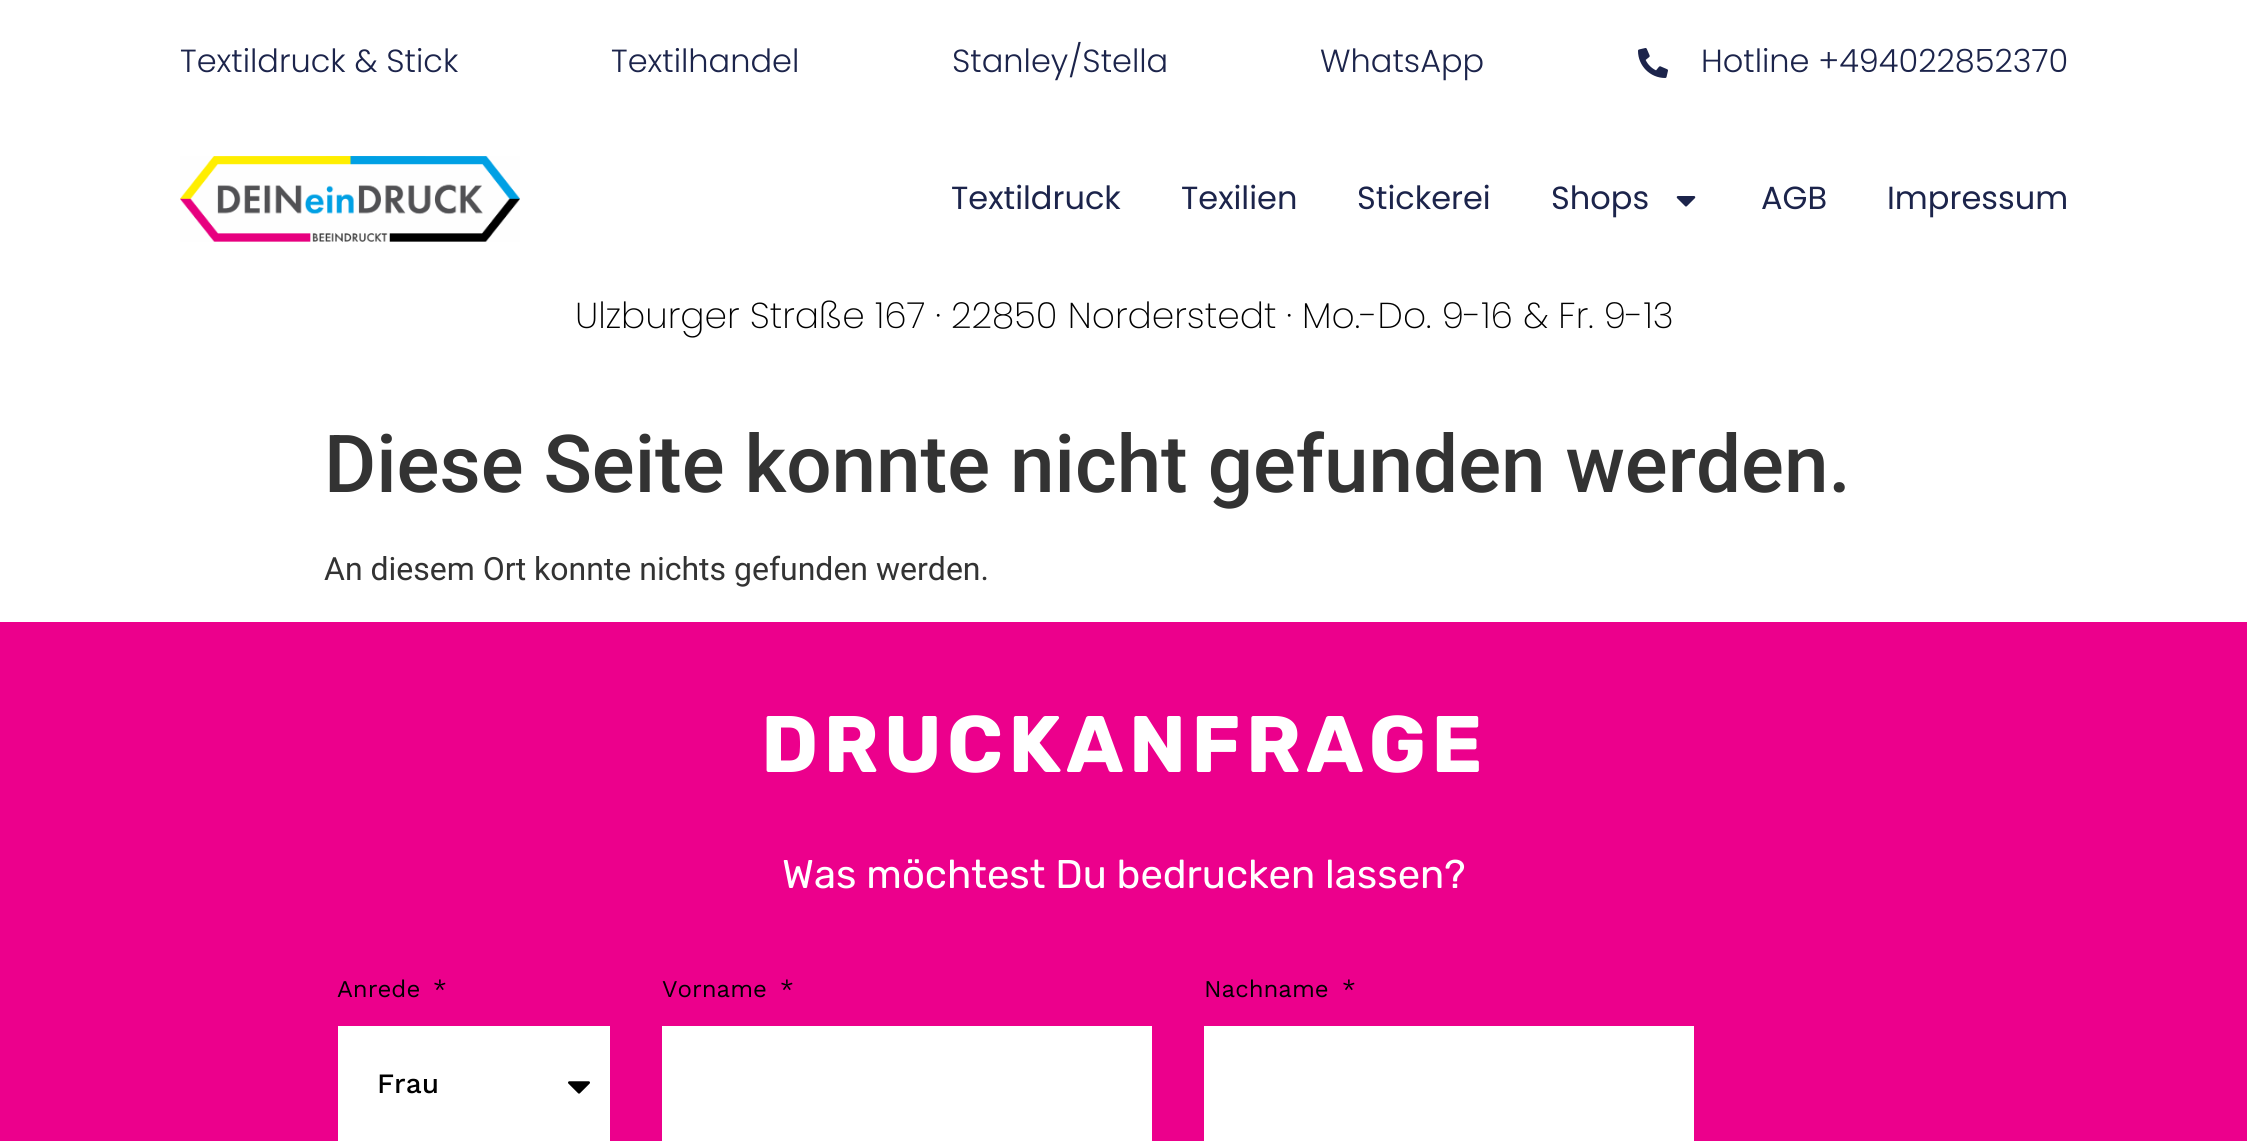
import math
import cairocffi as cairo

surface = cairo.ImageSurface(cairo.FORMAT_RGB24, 2247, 1141)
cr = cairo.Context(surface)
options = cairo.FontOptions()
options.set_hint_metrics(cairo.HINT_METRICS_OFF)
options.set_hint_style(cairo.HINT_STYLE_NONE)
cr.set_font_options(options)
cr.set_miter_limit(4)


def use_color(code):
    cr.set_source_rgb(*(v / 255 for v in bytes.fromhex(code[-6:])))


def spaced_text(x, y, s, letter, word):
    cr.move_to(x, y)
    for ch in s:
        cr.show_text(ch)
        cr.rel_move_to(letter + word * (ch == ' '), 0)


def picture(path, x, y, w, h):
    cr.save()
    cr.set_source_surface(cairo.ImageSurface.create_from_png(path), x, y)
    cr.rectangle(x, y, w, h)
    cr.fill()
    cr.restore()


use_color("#ffffff")
cr.paint()
cr.select_font_face("Poppins Light")
cr.set_font_size(32)
use_color("#1c244b")
cr.move_to(180, 72)
cr.show_text("Textildruck & Stick")
cr.move_to(611, 72)
cr.show_text("Textilhandel")
cr.move_to(952, 72)
cr.show_text("Stanley/Stella")
cr.move_to(1320, 72)
cr.show_text("WhatsApp")
picture("img1.png", 1638, 48, 30, 30)
cr.move_to(1701, 72)
cr.show_text("Hotline +494022852370")
picture("img2.png", 180, 156, 340, 86)
cr.select_font_face("Poppins")
cr.move_to(951, 209)
cr.show_text("Textildruck")
cr.move_to(1181, 209)
cr.show_text("Texilien")
cr.move_to(1357, 209)
cr.show_text("Stickerei")
cr.move_to(1551, 209)
cr.show_text("Shops")
picture("img3.png", 1676, 196, 20, 11)
cr.move_to(1761, 209)
cr.show_text("AGB")
cr.move_to(1887, 209)
cr.show_text("Impressum")
cr.select_font_face("Poppins ExtraLight")
cr.set_font_size(36)
use_color("#000000")
cr.move_to(575, 328)
cr.show_text("Ulzburger Straße 167 · 22850 Norderstedt · Mo.-Do. 9-16 & Fr. 9-13")
cr.select_font_face("Roboto Medium")
cr.set_font_size(80)
use_color("#333333")
cr.move_to(324, 492)
cr.show_text("Diese Seite konnte nicht gefunden werden.")
cr.select_font_face("Roboto")
cr.set_font_size(32)
cr.move_to(324, 580)
cr.show_text("An diesem Ort konnte nichts gefunden werden.")
use_color("#ec008c")
cr.rectangle(0, 622, 2247, 519)
cr.fill()
cr.select_font_face("Rubik", cairo.FONT_SLANT_NORMAL, cairo.FONT_WEIGHT_BOLD)
cr.set_font_size(80)
use_color("#ffffff")
spaced_text(761, 772, "DRUCKANFRAGE", 5.1, 0)
cr.select_font_face("Rubik")
cr.set_font_size(40)
cr.move_to(782, 888)
cr.show_text("Was möchtest Du bedrucken lassen?")
cr.select_font_face("Work Sans")
cr.set_font_size(24)
use_color("#000000")
cr.move_to(337, 997)
cr.show_text("Anrede")
cr.move_to(433, 997)
cr.show_text("*")
use_color("#ffffff")
cr.rectangle(338, 1026, 272, 115)
cr.fill()
cr.select_font_face("Work Sans Medium")
cr.set_font_size(28)
use_color("#000000")
cr.move_to(377, 1093)
cr.show_text("Frau")
picture("img4.png", 568, 1081, 22, 13)
cr.select_font_face("Work Sans")
cr.set_font_size(24)
cr.move_to(662, 997)
cr.show_text("Vorname")
cr.move_to(780, 997)
cr.show_text("*")
use_color("#ffffff")
cr.rectangle(662, 1026, 490, 115)
cr.fill()
use_color("#000000")
cr.move_to(1204, 997)
cr.show_text("Nachname")
cr.move_to(1342, 997)
cr.show_text("*")
use_color("#ffffff")
cr.rectangle(1204, 1026, 490, 115)
cr.fill()
surface.write_to_png("result.png")
